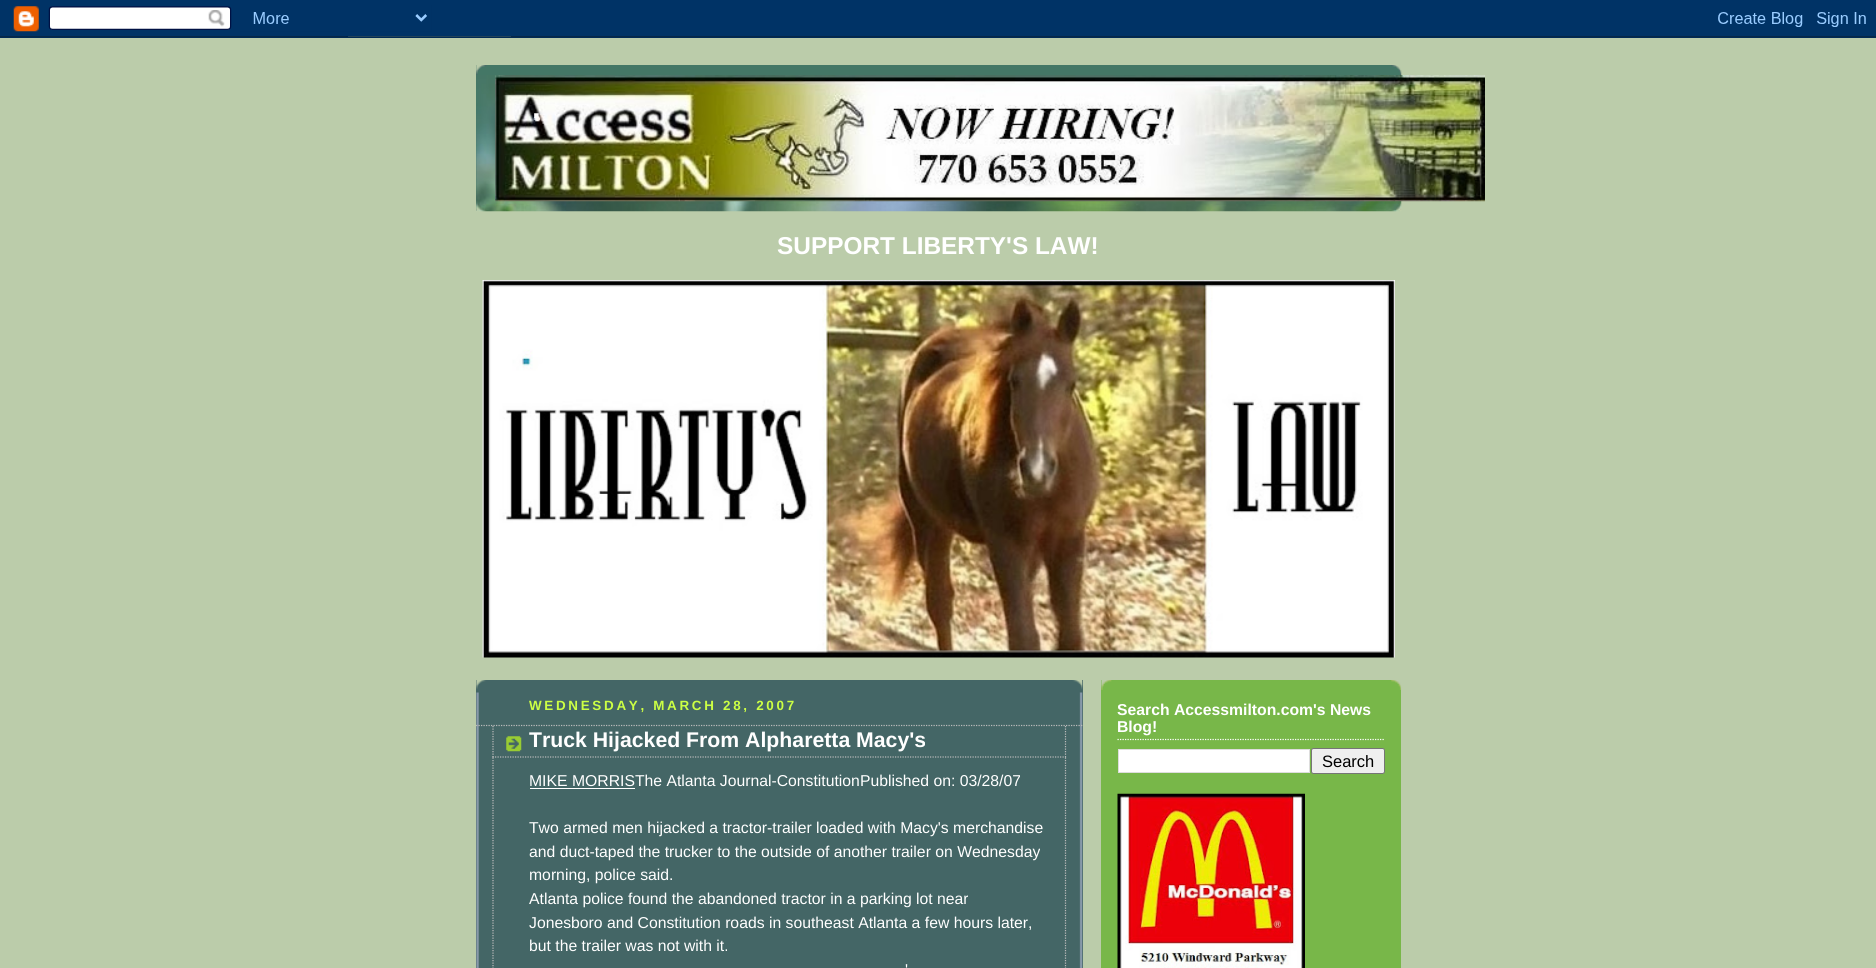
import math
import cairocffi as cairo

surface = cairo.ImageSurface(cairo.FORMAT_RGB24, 1876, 968)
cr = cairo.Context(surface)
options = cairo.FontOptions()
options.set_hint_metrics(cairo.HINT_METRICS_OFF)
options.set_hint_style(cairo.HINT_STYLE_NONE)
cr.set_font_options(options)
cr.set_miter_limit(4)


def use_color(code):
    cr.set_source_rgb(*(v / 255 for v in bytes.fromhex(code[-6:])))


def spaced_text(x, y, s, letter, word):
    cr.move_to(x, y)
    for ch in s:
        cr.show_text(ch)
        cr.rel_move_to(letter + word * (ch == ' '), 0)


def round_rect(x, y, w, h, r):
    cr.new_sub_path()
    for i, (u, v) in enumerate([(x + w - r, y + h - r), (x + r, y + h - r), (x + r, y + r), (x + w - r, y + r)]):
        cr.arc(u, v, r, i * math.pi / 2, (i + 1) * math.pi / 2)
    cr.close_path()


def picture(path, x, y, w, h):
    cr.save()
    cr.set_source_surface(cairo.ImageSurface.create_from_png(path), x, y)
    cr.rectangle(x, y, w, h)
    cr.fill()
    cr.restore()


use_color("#bbccaa")
cr.paint()
picture("img1.png", 0, 0, 1876, 38)
use_color("#447766")
cr.rectangle(476, 65, 925, 146)
cr.fill()
picture("img2.png", 476, 65, 926, 10)
picture("img3.png", 476, 75, 926, 137)
picture("img4.png", 495, 75, 990, 127)
cr.select_font_face("Liberation Sans", cairo.FONT_SLANT_NORMAL, cairo.FONT_WEIGHT_BOLD)
cr.set_font_size(32)
use_color("#ffffff")
cr.move_to(532, 118)
cr.show_text(".")
cr.set_font_size(24.4)
cr.move_to(777, 254)
cr.show_text("SUPPORT LIBERTY'S LAW!")
picture("img5.png", 482, 280, 913, 378)
use_color("#446666")
cr.rectangle(476, 680, 607, 288)
cr.fill()
picture("img6.png", 476, 680, 607, 10)
picture("img7.png", 476, 692, 607, 276)
cr.set_font_size(13.4)
use_color("#ccff44")
spaced_text(529, 710, "WEDNESDAY, MARCH 28, 2007", 2.7, 0)
cr.new_path()
cr.move_to(476, 725.5)
cr.line_to(1082.5, 725.5)
use_color("#bbbbbb")
cr.set_line_width(1.2)
cr.set_dash([1.25, 1.25])
cr.stroke()
picture("img8.png", 506, 736, 16, 16)
cr.new_path()
cr.move_to(1065.5, 726)
cr.line_to(1065.5, 757.5)
cr.stroke()
cr.new_path()
cr.move_to(492.5, 757)
cr.line_to(1066, 757)
cr.stroke()
cr.new_path()
cr.move_to(493, 726)
cr.line_to(493, 757.5)
cr.stroke()
cr.set_font_size(21.25)
use_color("#ffffff")
cr.move_to(529, 747)
cr.show_text("Truck Hijacked From Alpharetta Macy's")
cr.new_path()
cr.move_to(1065.5, 757.5)
cr.line_to(1065.5, 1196)
use_color("#bbbbbb")
cr.stroke()
cr.new_path()
cr.move_to(493, 757.5)
cr.line_to(493, 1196)
cr.stroke()
cr.select_font_face("Liberation Sans")
cr.set_font_size(15.75)
use_color("#ffffff")
cr.move_to(529, 786)
cr.show_text("MIKE MORRISThe Atlanta Journal-ConstitutionPublished on: 03/28/07")
cr.rectangle(530, 788, 105, 1)
cr.fill()
cr.move_to(529, 833)
cr.show_text("Two armed men hijacked a tractor-trailer loaded with Macy's merchandise")
cr.move_to(529, 857)
cr.show_text("and duct-taped the trucker to the outside of another trailer on Wednesday")
cr.move_to(529, 880)
cr.show_text("morning, police said.")
cr.move_to(529, 904)
cr.show_text("Atlanta police found the abandoned tractor in a parking lot near")
cr.move_to(529, 928)
cr.show_text("Jonesboro and Constitution roads in southeast Atlanta a few hours later,")
cr.move_to(529, 951)
cr.show_text("but the trailer was not with it.")
cr.move_to(905, 975)
cr.show_text("'")
use_color("#78b749")
cr.rectangle(1101, 680, 300, 288)
cr.fill()
picture("img9.png", 1101, 680, 301, 10)
cr.new_path()
cr.move_to(1117.5, 739.5)
cr.line_to(1385, 739.5)
use_color("#ffffff")
cr.stroke()
cr.select_font_face("Liberation Sans", cairo.FONT_SLANT_NORMAL, cairo.FONT_WEIGHT_BOLD)
cr.move_to(1117, 715)
cr.show_text("Search Accessmilton.com's News")
cr.move_to(1117, 732)
cr.show_text("Blog!")
cr.rectangle(1118.5, 749.5, 191, 23)
cr.fill_preserve()
use_color("#dddddd")
cr.set_line_width(1)
cr.set_dash([])
cr.stroke()
use_color("#efefef")
round_rect(1311.5, 748.5, 73, 25, 2)
cr.fill_preserve()
use_color("#767676")
cr.stroke()
cr.select_font_face("Liberation Sans")
cr.set_font_size(16.5)
use_color("#000000")
cr.move_to(1322, 767)
cr.show_text("Search")
picture("img10.png", 1117, 793, 188, 175)
surface.write_to_png("result.png")
